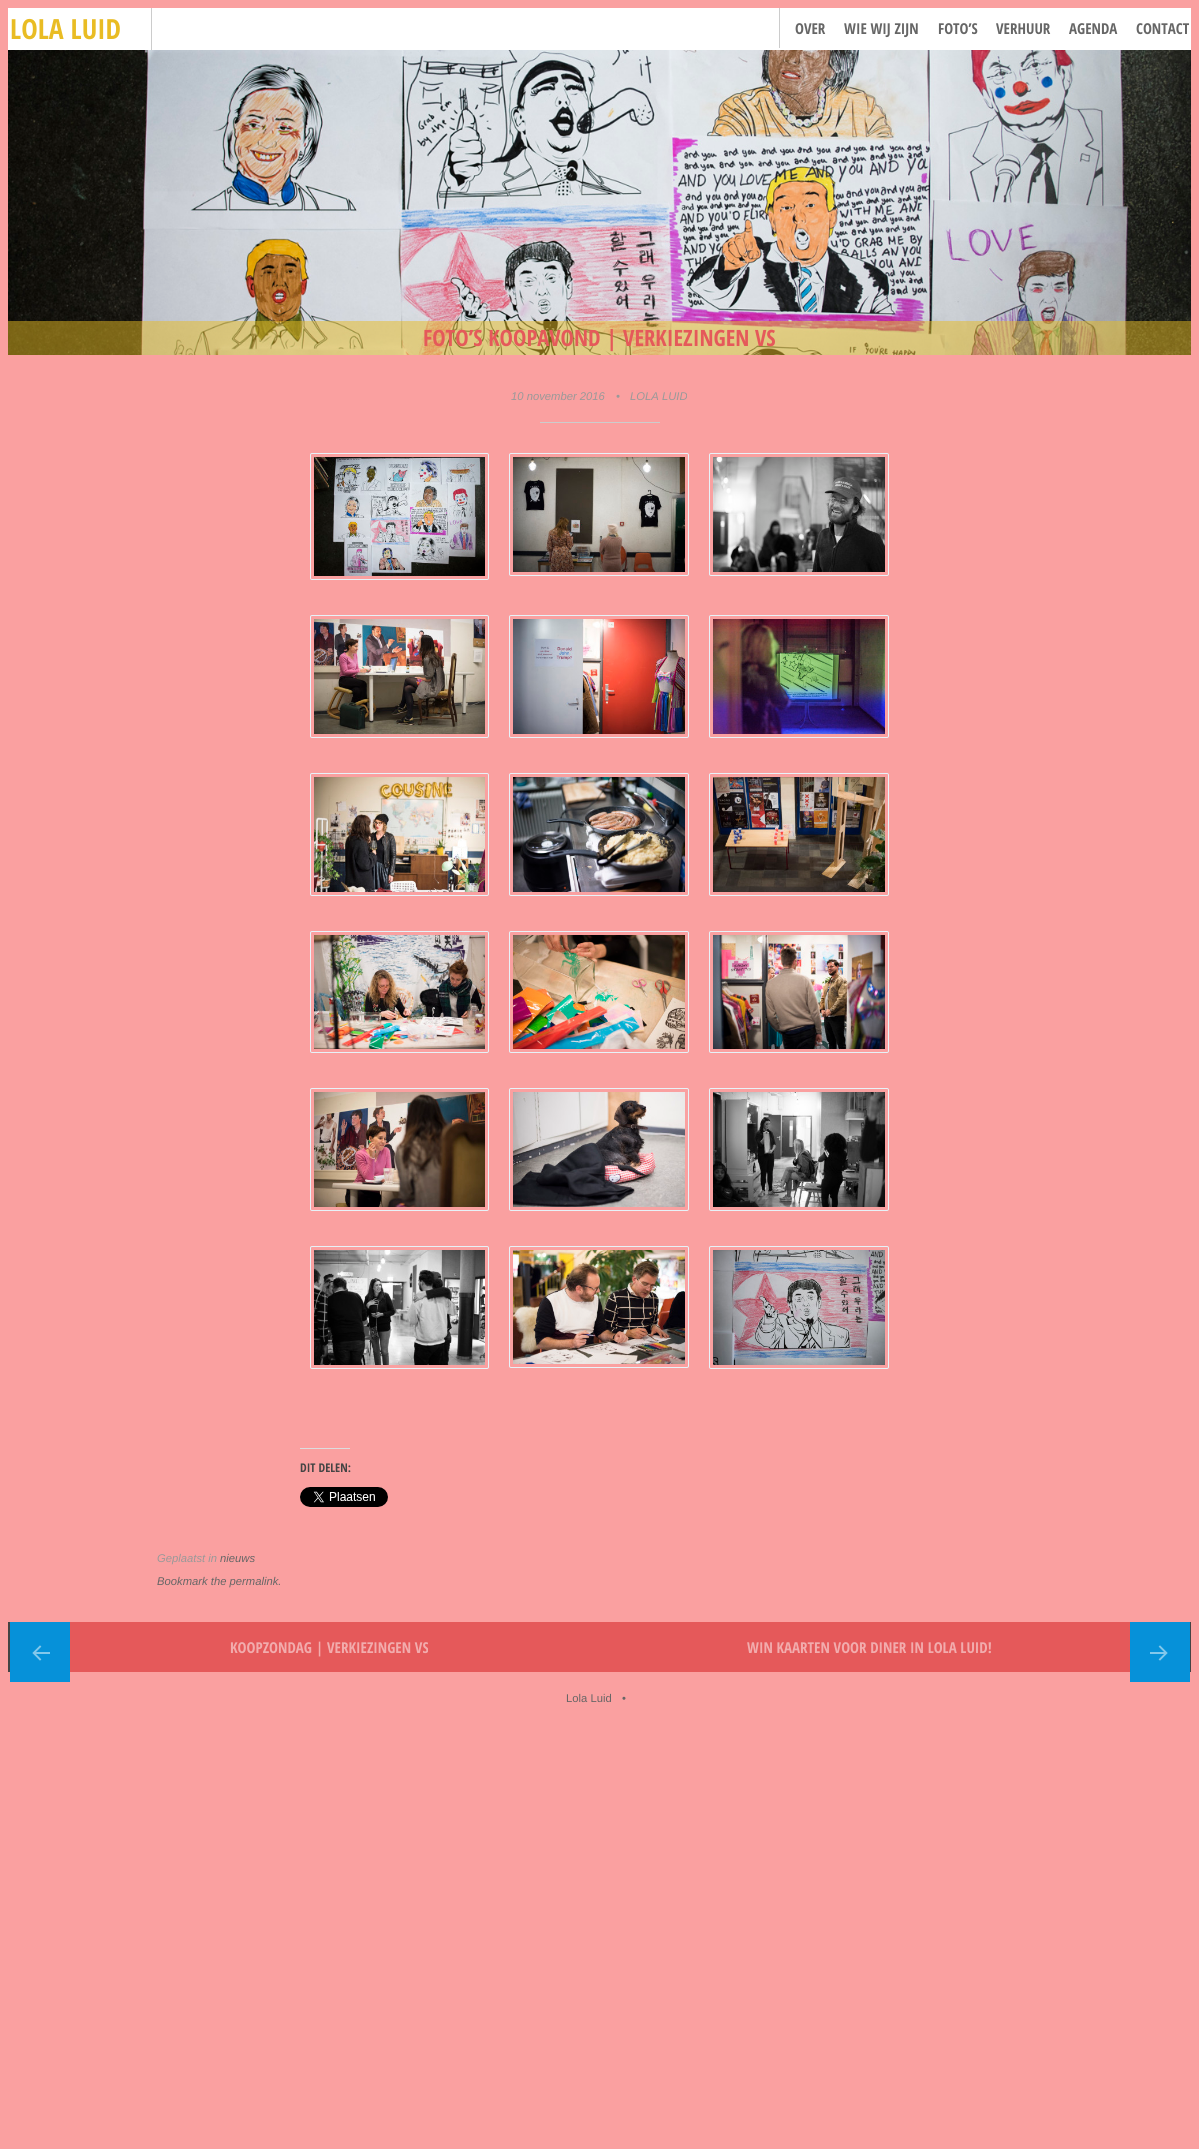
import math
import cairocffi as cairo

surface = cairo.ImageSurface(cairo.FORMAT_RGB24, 1199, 2149)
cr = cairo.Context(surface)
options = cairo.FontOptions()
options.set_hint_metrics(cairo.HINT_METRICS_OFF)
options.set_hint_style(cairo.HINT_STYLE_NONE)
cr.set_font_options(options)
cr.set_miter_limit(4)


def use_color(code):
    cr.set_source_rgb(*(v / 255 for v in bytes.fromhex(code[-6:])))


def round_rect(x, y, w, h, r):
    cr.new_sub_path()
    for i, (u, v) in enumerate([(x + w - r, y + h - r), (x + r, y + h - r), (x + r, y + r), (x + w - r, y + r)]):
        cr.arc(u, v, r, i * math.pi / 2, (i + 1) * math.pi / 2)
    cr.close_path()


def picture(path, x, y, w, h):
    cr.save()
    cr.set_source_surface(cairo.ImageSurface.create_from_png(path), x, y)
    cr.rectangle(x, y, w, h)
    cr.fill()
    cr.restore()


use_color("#faa0a0")
cr.paint()
use_color("#ffffff")
cr.rectangle(8, 8, 1183, 42)
cr.fill()
use_color("#cccccc")
cr.rectangle(151, 8, 1, 42)
cr.fill()
cr.select_font_face("Open Sans Condensed", cairo.FONT_SLANT_NORMAL, cairo.FONT_WEIGHT_BOLD)
cr.set_font_size(27.75)
use_color("#e9bc23")
cr.move_to(10, 39)
cr.show_text("LOLA LUID")
use_color("#cccccc")
cr.rectangle(779, 8, 1, 40)
cr.fill()
cr.set_font_size(15)
use_color("#666666")
cr.move_to(795, 34)
cr.show_text("OVER")
cr.move_to(844, 34)
cr.show_text("WIE WIJ ZIJN")
cr.move_to(938, 34)
cr.show_text("FOTO’S")
cr.move_to(996, 34)
cr.show_text("VERHUUR")
cr.move_to(1069, 34)
cr.show_text("AGENDA")
cr.move_to(1136, 34)
cr.show_text("CONTACT")
picture("img1.png", 8, 50, 1183, 305)
cr.set_source_rgba(0.914, 0.737, 0.137, 0.5)
cr.rectangle(8, 321, 1183, 34)
cr.fill()
cr.set_font_size(22.5)
use_color("#e5595a")
cr.move_to(423, 346)
cr.show_text("FOTO’S KOOPAVOND | VERKIEZINGEN VS")
cr.select_font_face("Liberation Sans", cairo.FONT_SLANT_ITALIC)
cr.set_font_size(11.25)
use_color("#999999")
cr.move_to(511, 400)
cr.show_text("10 november 2016")
cr.move_to(616, 400)
cr.show_text("•")
cr.move_to(630, 400)
cr.show_text("LOLA LUID")
use_color("#cccccc")
cr.rectangle(540, 422, 120, 1)
cr.fill()
round_rect(310.5, 453.5, 178, 126, 1.5)
use_color("#e7f2f8")
cr.set_line_width(1)
cr.stroke()
picture("img2.png", 314, 457, 171, 119)
round_rect(509.5, 453.5, 179, 122, 1.5)
cr.stroke()
picture("img3.png", 513, 457, 172, 115)
round_rect(709.5, 453.5, 179, 122, 1.5)
cr.stroke()
picture("img4.png", 713, 457, 172, 115)
round_rect(310.5, 615.5, 178, 122, 1.5)
cr.stroke()
picture("img5.png", 314, 619, 171, 115)
round_rect(509.5, 615.5, 179, 122, 1.5)
cr.stroke()
picture("img6.png", 513, 619, 172, 115)
round_rect(709.5, 615.5, 179, 122, 1.5)
cr.stroke()
picture("img7.png", 713, 619, 172, 115)
round_rect(310.5, 773.5, 178, 122, 1.5)
cr.stroke()
picture("img8.png", 314, 777, 171, 115)
round_rect(509.5, 773.5, 179, 122, 1.5)
cr.stroke()
picture("img9.png", 513, 777, 172, 115)
round_rect(709.5, 773.5, 179, 122, 1.5)
cr.stroke()
picture("img10.png", 713, 777, 172, 115)
round_rect(310.5, 931.5, 178, 121, 1.5)
cr.stroke()
picture("img11.png", 314, 935, 171, 114)
round_rect(509.5, 931.5, 179, 121, 1.5)
cr.stroke()
picture("img12.png", 513, 935, 172, 114)
round_rect(709.5, 931.5, 179, 121, 1.5)
cr.stroke()
picture("img13.png", 713, 935, 172, 114)
round_rect(310.5, 1088.5, 178, 122, 1.5)
cr.stroke()
picture("img14.png", 314, 1092, 171, 115)
round_rect(509.5, 1088.5, 179, 122, 1.5)
cr.stroke()
picture("img15.png", 513, 1092, 172, 115)
round_rect(709.5, 1088.5, 179, 122, 1.5)
cr.stroke()
picture("img16.png", 713, 1092, 172, 115)
round_rect(310.5, 1246.5, 178, 122, 1.5)
cr.stroke()
picture("img17.png", 314, 1250, 171, 115)
round_rect(509.5, 1246.5, 179, 121, 1.5)
cr.stroke()
picture("img18.png", 513, 1250, 172, 114)
round_rect(709.5, 1246.5, 179, 122, 1.5)
cr.stroke()
picture("img19.png", 713, 1250, 172, 115)
use_color("#dcdcde")
cr.rectangle(300, 1448, 50, 1)
cr.fill()
cr.select_font_face("Open Sans Condensed", cairo.FONT_SLANT_NORMAL, cairo.FONT_WEIGHT_BOLD)
cr.set_font_size(12)
use_color("#444444")
cr.move_to(300, 1472)
cr.show_text("DIT DELEN:")
picture("img20.png", 300, 1487, 88, 20)
cr.select_font_face("Liberation Sans", cairo.FONT_SLANT_ITALIC)
cr.set_font_size(11.25)
use_color("#999999")
cr.move_to(157, 1562)
cr.show_text("Geplaatst in")
use_color("#666666")
cr.move_to(220, 1562)
cr.show_text("nieuws")
cr.move_to(157, 1585)
cr.show_text("Bookmark the permalink.")
use_color("#444444")
cr.rectangle(8, 1622, 1183, 50)
cr.fill()
use_color("#e5595a")
cr.rectangle(70, 1622, 1060, 50)
cr.fill()
use_color("#0691d9")
cr.rectangle(10, 1622, 60, 60)
cr.fill()
picture("img21.png", 32, 1645, 18, 16)
cr.select_font_face("Open Sans Condensed", cairo.FONT_SLANT_NORMAL, cairo.FONT_WEIGHT_BOLD)
cr.set_font_size(15)
use_color("#f2acad")
cr.move_to(230, 1653)
cr.show_text("KOOPZONDAG | VERKIEZINGEN VS")
cr.move_to(747, 1653)
cr.show_text("WIN KAARTEN VOOR DINER IN LOLA LUID!")
use_color("#0691d9")
cr.rectangle(1130, 1622, 60, 60)
cr.fill()
picture("img22.png", 1150, 1645, 18, 16)
cr.select_font_face("Liberation Sans")
cr.set_font_size(11.25)
use_color("#666666")
cr.move_to(566, 1702)
cr.show_text("Lola Luid")
cr.move_to(622, 1702)
cr.show_text("•")
surface.write_to_png("result.png")
